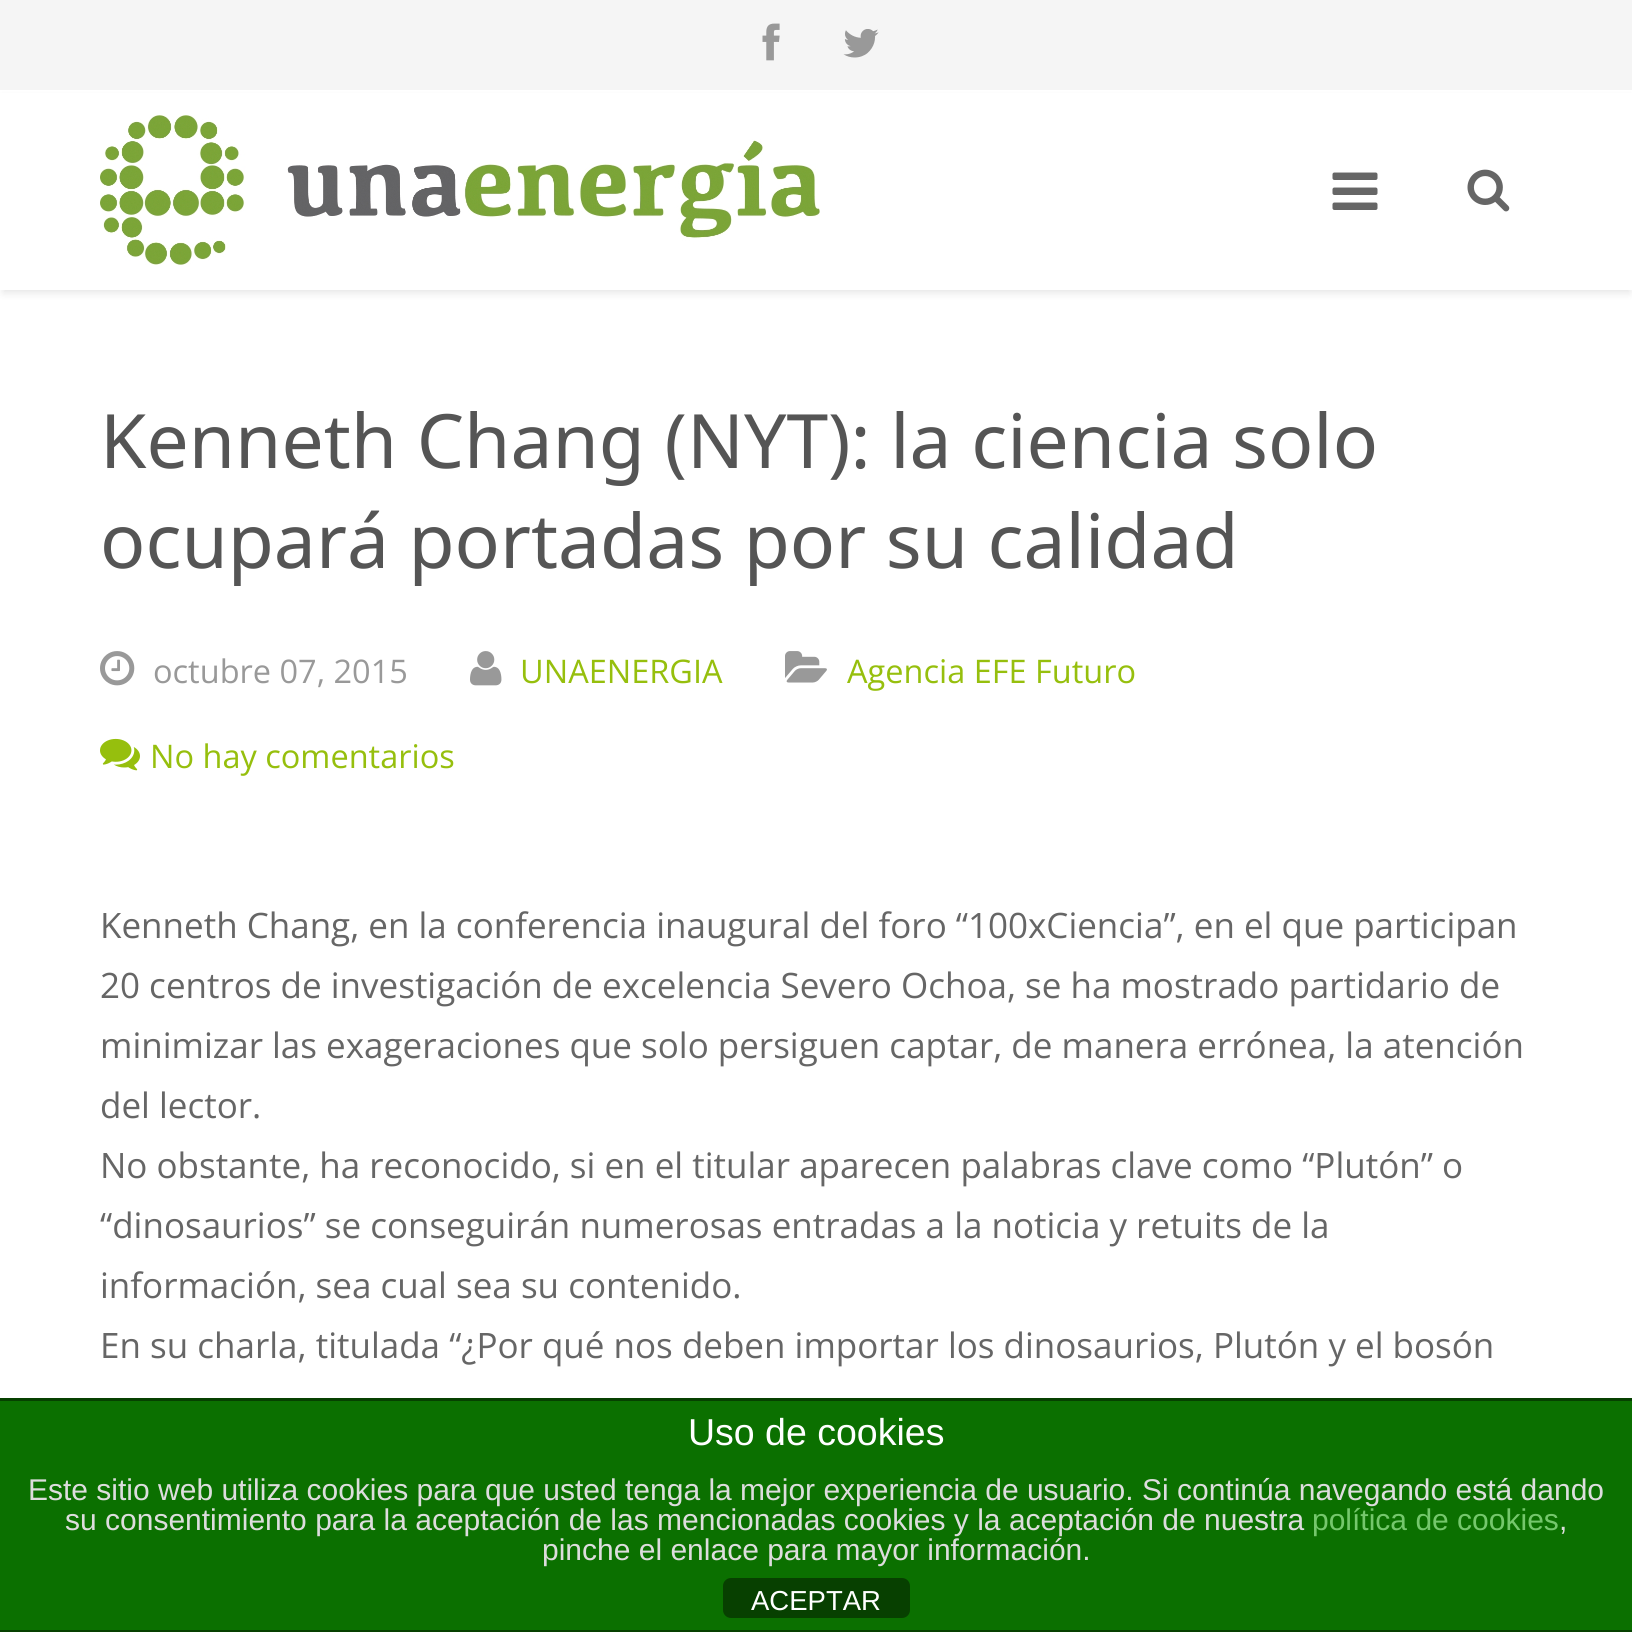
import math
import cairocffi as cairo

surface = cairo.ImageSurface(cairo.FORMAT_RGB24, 1632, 1632)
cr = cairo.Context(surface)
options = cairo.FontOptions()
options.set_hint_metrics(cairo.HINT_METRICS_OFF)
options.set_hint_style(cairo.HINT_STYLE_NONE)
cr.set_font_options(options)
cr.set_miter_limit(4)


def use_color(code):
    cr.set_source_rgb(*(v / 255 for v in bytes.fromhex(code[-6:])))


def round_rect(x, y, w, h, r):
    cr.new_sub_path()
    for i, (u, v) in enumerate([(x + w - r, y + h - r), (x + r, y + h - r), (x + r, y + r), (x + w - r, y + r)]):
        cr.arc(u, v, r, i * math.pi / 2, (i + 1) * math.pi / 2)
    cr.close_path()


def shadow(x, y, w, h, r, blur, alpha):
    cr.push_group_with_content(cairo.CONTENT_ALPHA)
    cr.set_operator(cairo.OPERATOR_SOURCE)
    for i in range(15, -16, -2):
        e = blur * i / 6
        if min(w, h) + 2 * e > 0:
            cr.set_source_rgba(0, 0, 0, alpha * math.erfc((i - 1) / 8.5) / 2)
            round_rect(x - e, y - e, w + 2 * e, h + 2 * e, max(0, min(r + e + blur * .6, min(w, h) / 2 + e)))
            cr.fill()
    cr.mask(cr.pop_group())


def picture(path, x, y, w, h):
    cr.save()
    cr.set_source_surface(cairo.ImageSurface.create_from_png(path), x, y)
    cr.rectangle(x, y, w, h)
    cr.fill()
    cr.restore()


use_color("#ffffff")
cr.paint()
use_color("#f5f5f5")
cr.rectangle(0, 0, 1632, 90)
cr.fill()
picture("img1.png", 762, 23, 18, 38)
picture("img2.png", 843, 29, 36, 29)
use_color("#000000")
shadow(3, 98, 1627, 195, 0, 4, 0.1)
use_color("#ffffff")
cr.rectangle(0, 93, 1632, 197)
cr.fill()
picture("img3.png", 100, 115, 720, 150)
picture("img4.png", 1332, 172, 46, 38)
picture("img5.png", 1467, 169, 43, 43)
cr.select_font_face("Noto Sans")
cr.set_font_size(75)
use_color("#555555")
cr.move_to(100, 468)
cr.show_text("Kenneth Chang (NYT): la ciencia solo")
cr.move_to(100, 568)
cr.show_text("ocupará portadas por su calidad")
picture("img6.png", 100, 651, 35, 35)
cr.select_font_face("Open Sans")
cr.set_font_size(32.5)
use_color("#999999")
cr.move_to(153, 683)
cr.show_text("octubre 07, 2015")
picture("img7.png", 470, 651, 32, 35)
use_color("#96bf0d")
cr.move_to(520, 683)
cr.show_text("UNAENERGIA")
picture("img8.png", 785, 651, 42, 32)
cr.move_to(847, 683)
cr.show_text("Agencia EFE Futuro")
picture("img9.png", 100, 738, 40, 33)
cr.move_to(150, 768)
cr.show_text("No hay comentarios")
cr.set_font_size(35)
use_color("#666666")
cr.move_to(100, 938)
cr.show_text("Kenneth Chang, en la conferencia inaugural del foro “100xCiencia”, en el que participan")
cr.move_to(100, 998)
cr.show_text("20 centros de investigación de excelencia Severo Ochoa, se ha mostrado partidario de")
cr.move_to(100, 1058)
cr.show_text("minimizar las exageraciones que solo persiguen captar, de manera errónea, la atención")
cr.move_to(100, 1118)
cr.show_text("del lector.")
cr.move_to(100, 1178)
cr.show_text("No obstante, ha reconocido, si en el titular aparecen palabras clave como “Plutón” o")
cr.move_to(100, 1238)
cr.show_text("“dinosaurios” se conseguirán numerosas entradas a la noticia y retuits de la")
cr.move_to(100, 1298)
cr.show_text("información, sea cual sea su contenido.")
cr.move_to(100, 1358)
cr.show_text("En su charla, titulada “¿Por qué nos deben importar los dinosaurios, Plutón y el bosón")
use_color("#0b7000")
cr.rectangle(0, 1401, 1632, 229)
cr.fill()
use_color("#064000")
cr.rectangle(0, 1398, 1632, 3)
cr.fill()
cr.rectangle(0, 1630, 1632, 2)
cr.fill()
cr.select_font_face("Liberation Sans")
cr.set_font_size(37.5)
use_color("#ffffff")
cr.move_to(688, 1445)
cr.show_text("Uso de cookies")
cr.set_font_size(30)
use_color("#dddddd")
cr.move_to(28, 1500)
cr.show_text("Este sitio web utiliza cookies para que usted tenga la mejor experiencia de usuario. Si continúa navegando está dando")
cr.move_to(65, 1530)
cr.show_text("su consentimiento para la aceptación de las mencionadas cookies y la aceptación de nuestra")
use_color("#75c76c")
cr.move_to(1312, 1530)
cr.show_text("política de cookies")
use_color("#dddddd")
cr.move_to(1559, 1530)
cr.show_text(",")
cr.move_to(542, 1560)
cr.show_text("pinche el enlace para mayor información.")
use_color("#074000")
round_rect(723, 1578, 187, 40, 8)
cr.fill()
cr.set_font_size(27.5)
use_color("#ffffff")
cr.move_to(751, 1610)
cr.show_text("ACEPTAR")
surface.write_to_png("result.png")
